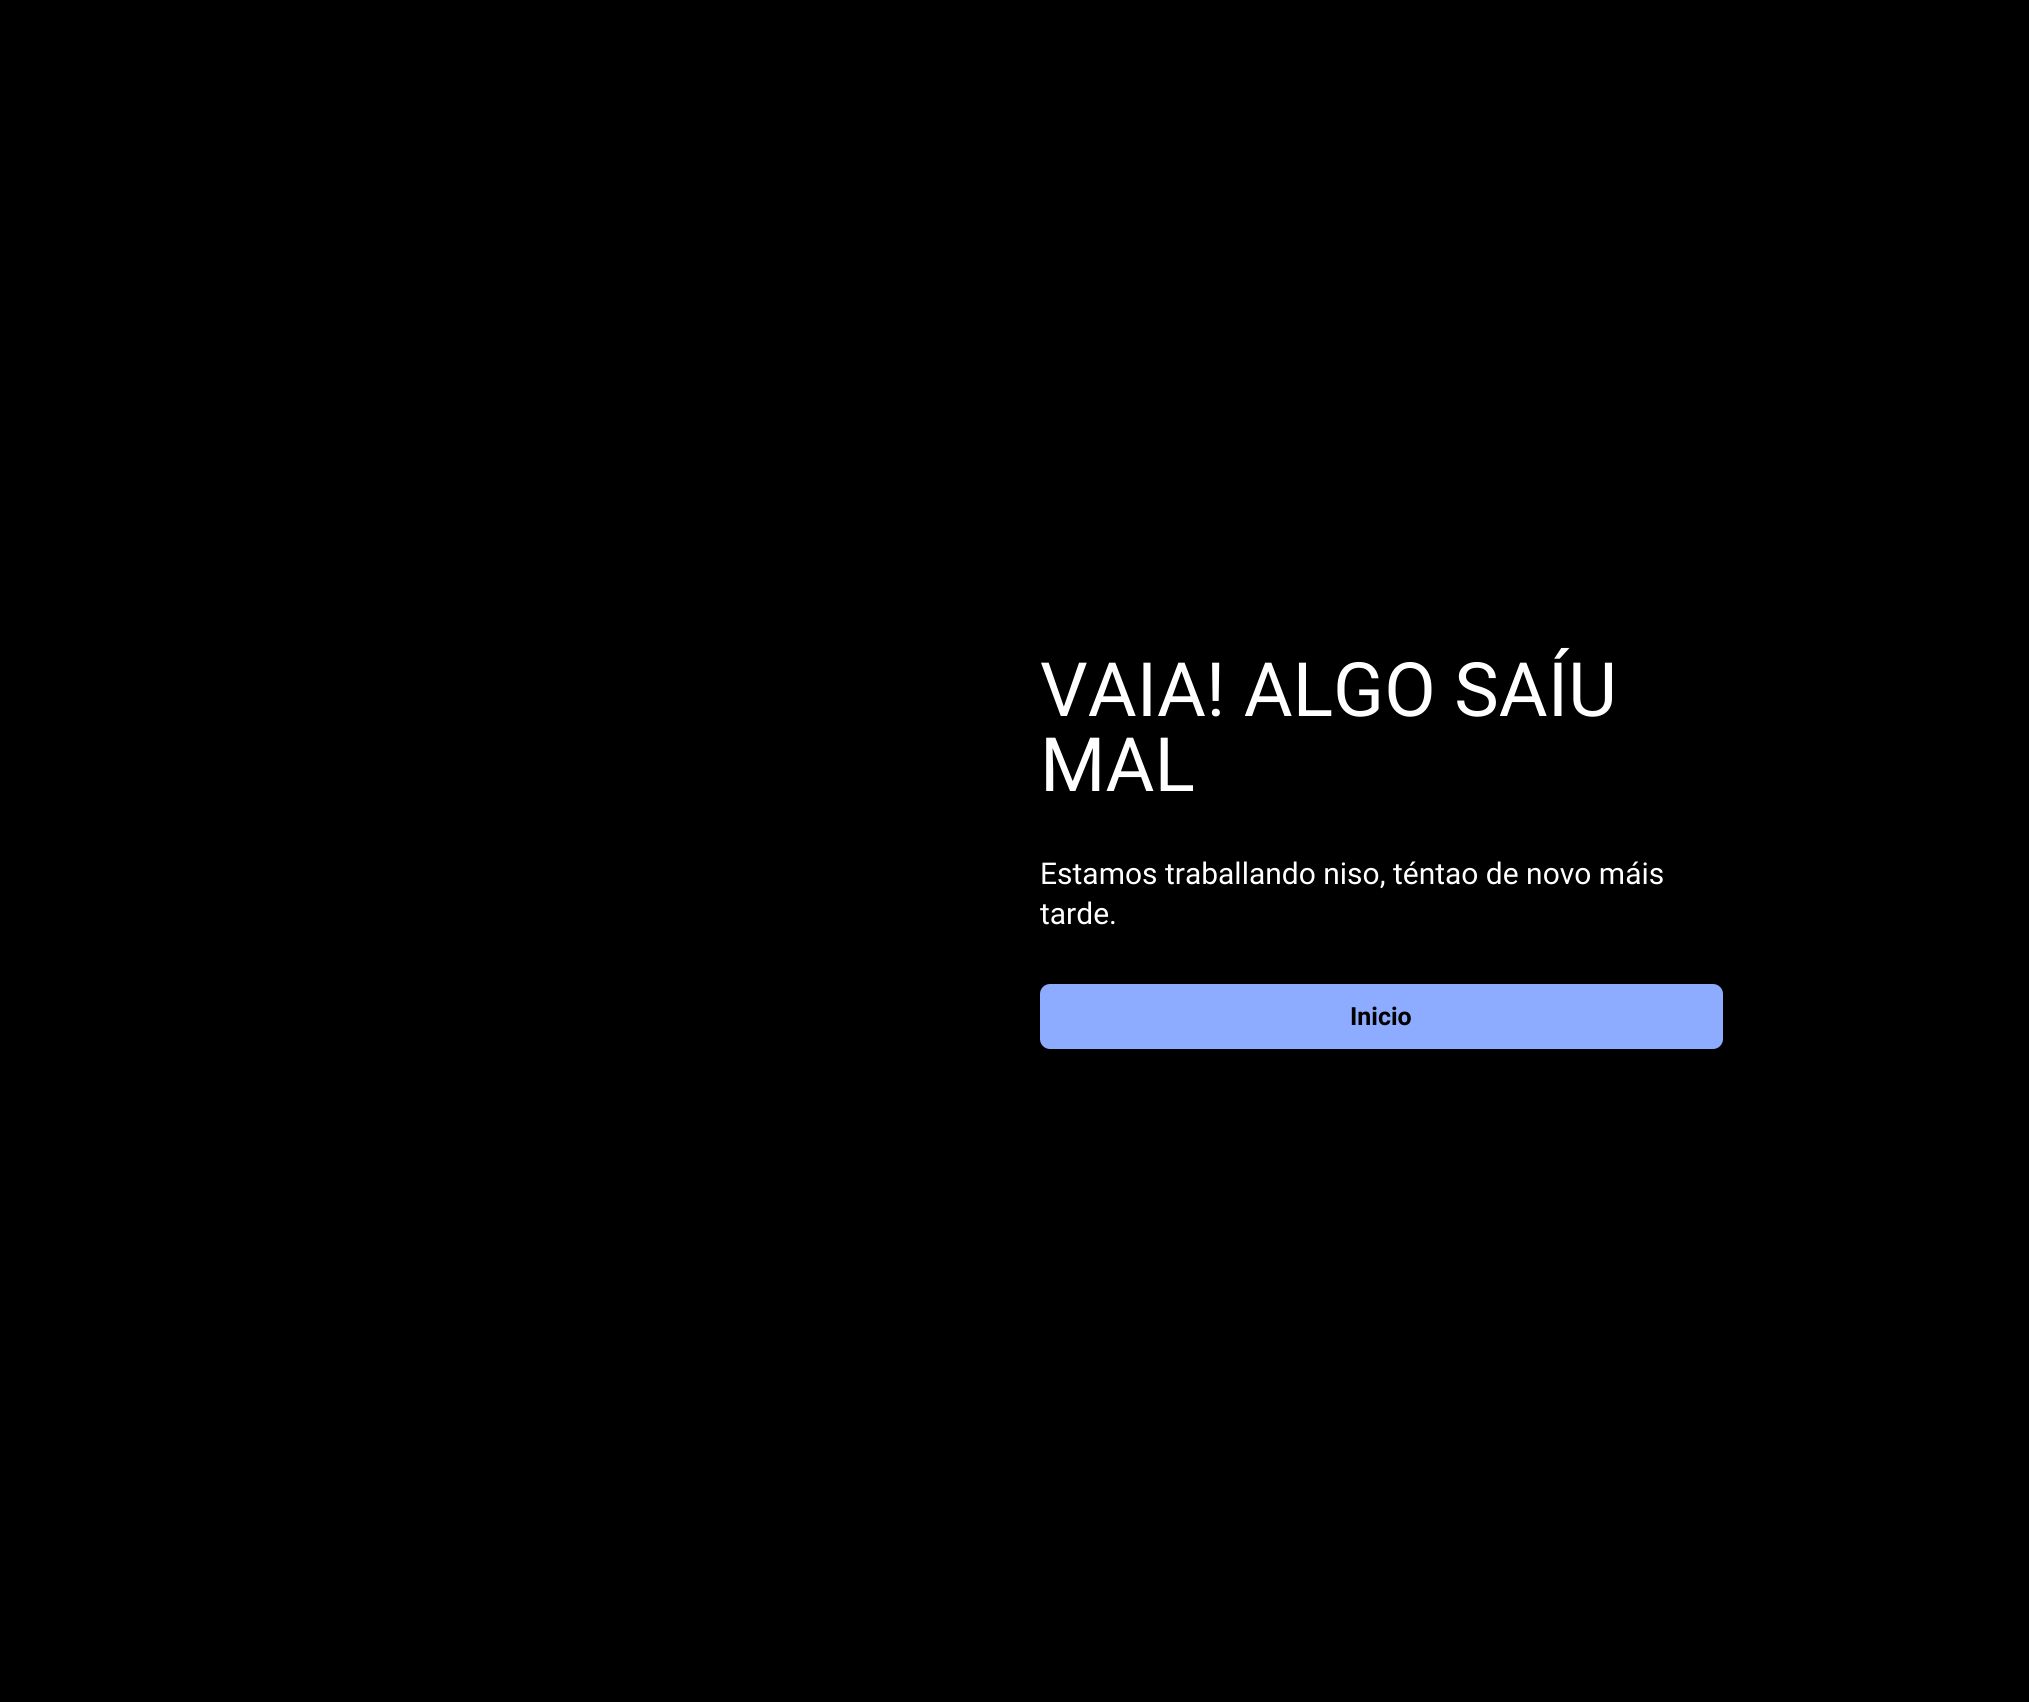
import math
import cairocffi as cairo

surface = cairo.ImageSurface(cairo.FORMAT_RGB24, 2029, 1702)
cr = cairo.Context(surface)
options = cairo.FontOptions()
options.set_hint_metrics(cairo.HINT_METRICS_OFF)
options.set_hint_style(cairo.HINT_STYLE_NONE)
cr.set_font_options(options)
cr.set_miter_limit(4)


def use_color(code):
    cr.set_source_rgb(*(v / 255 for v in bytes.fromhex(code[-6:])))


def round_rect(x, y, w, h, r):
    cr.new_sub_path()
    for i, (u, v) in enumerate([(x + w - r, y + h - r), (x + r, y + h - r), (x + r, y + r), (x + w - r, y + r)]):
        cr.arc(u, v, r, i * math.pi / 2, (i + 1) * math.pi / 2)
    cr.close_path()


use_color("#000000")
cr.paint()
cr.select_font_face("Roboto")
cr.set_font_size(75)
use_color("#ffffff")
cr.move_to(1040, 716)
cr.show_text("VAIA! ALGO SAÍU")
cr.move_to(1040, 791)
cr.show_text("MAL")
cr.set_font_size(30)
cr.move_to(1040, 884)
cr.show_text("Estamos traballando niso, téntao de novo máis")
cr.move_to(1040, 924)
cr.show_text("tarde.")
use_color("#8eacff")
round_rect(1040, 984, 683, 65, 10)
cr.fill()
cr.select_font_face("Roboto", cairo.FONT_SLANT_NORMAL, cairo.FONT_WEIGHT_BOLD)
cr.set_font_size(25)
use_color("#000000")
cr.move_to(1350, 1025)
cr.show_text("Inicio")
surface.write_to_png("result.png")
